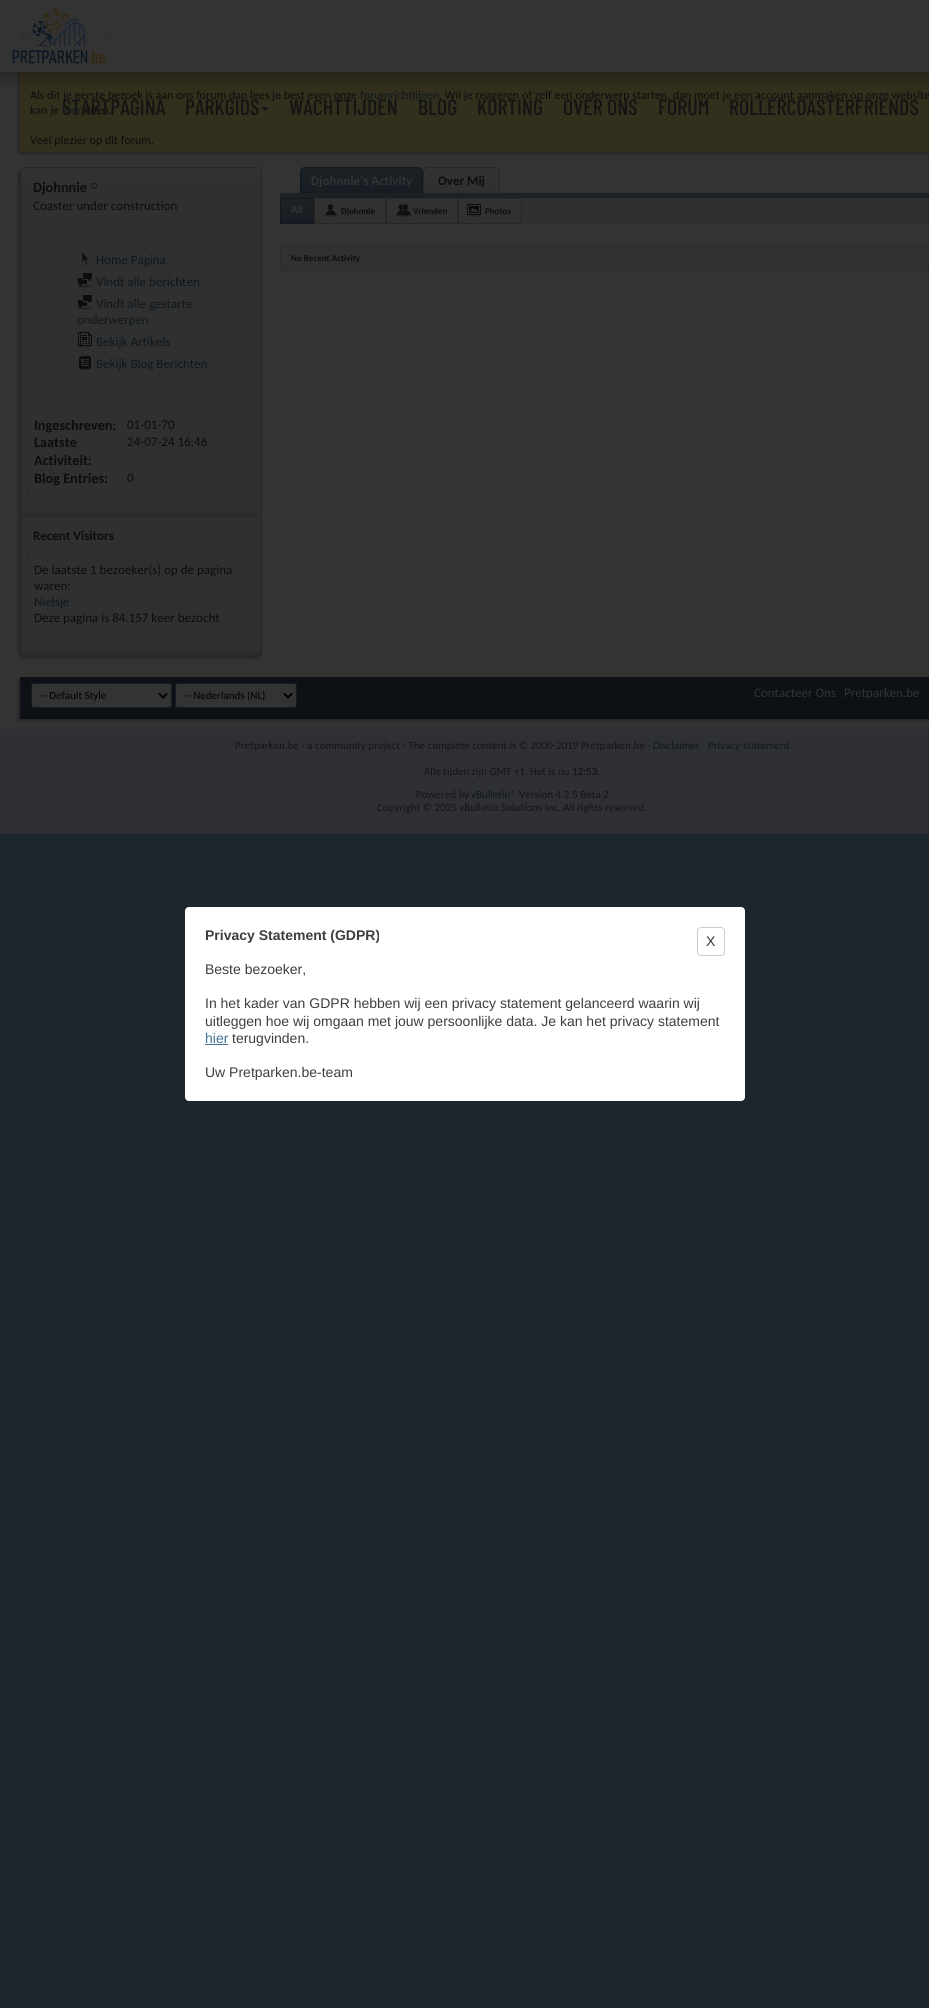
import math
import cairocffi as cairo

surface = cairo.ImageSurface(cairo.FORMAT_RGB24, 929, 2008)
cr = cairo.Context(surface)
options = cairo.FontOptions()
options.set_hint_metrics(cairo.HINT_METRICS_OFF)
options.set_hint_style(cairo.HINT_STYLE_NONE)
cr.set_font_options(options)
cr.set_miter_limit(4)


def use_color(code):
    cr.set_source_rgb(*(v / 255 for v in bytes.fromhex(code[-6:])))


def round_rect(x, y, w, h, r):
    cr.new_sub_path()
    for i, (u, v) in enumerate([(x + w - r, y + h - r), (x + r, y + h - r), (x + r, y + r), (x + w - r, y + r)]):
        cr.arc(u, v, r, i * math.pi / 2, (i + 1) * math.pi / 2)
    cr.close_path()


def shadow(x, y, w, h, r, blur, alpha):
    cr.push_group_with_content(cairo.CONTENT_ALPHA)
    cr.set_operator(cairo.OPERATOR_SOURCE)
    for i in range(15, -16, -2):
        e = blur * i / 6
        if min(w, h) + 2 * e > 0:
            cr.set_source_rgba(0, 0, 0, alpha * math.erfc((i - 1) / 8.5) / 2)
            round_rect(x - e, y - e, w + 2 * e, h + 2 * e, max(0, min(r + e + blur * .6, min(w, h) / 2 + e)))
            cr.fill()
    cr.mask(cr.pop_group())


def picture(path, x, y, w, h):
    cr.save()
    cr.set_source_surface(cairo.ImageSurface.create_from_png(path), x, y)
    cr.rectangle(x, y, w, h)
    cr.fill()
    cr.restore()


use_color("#1d262c")
cr.paint()
use_color("#2e3033")
cr.rectangle(0, 0, 929, 834)
cr.fill()
use_color("#333333")
cr.rectangle(0, 16, 929, 713)
cr.fill()
picture("img1.png", 20, 31, 12, 11)
picture("img2.png", 104, 32, 7, 10)
use_color("#282828")
shadow(18, 56, 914, 98, 0, 1, 1)
use_color("#332f1d")
cr.rectangle(20, 54, 909, 98)
cr.fill()
cr.select_font_face("Carlito")
cr.set_font_size(12)
use_color("#0c0c0c")
cr.move_to(30, 99)
cr.show_text("Als dit je eerste bezoek is aan ons forum dan lees je best even onze")
use_color("#0d171e")
cr.move_to(360, 99)
cr.show_text("forumrichtlijnen")
use_color("#0c0c0c")
cr.move_to(439, 99)
cr.show_text(". Wil je reageren of zelf een onderwerp starten, dan moet je een account aanmaken op onze website")
cr.move_to(30, 114)
cr.show_text("kan je")
use_color("#0d171e")
cr.move_to(62, 114)
cr.show_text("hier")
use_color("#0c0c0c")
cr.move_to(84, 114)
cr.show_text("doen.")
cr.move_to(30, 144)
cr.show_text("Veel plezier op dit forum.")
use_color("#282828")
shadow(18, 169, 242, 490, 5, 1, 1)
use_color("#303030")
round_rect(20, 167, 242, 490, 5)
cr.fill()
picture("img3.png", 20, 168, 242, 15)
round_rect(20.5, 167.5, 241, 489, 4.5)
use_color("#272727")
cr.set_line_width(1)
cr.stroke()
picture("img4.png", 23, 168, 236, 1)
cr.select_font_face("Carlito", cairo.FONT_SLANT_NORMAL, cairo.FONT_WEIGHT_BOLD)
cr.set_font_size(14.25)
use_color("#0c0c0c")
cr.move_to(33, 192)
cr.show_text("Djohnnie")
picture("img5.png", 91, 183, 6, 6)
cr.select_font_face("Carlito")
cr.set_font_size(13)
cr.move_to(33, 210)
cr.show_text("Coaster under construction")
picture("img6.png", 82, 252, 9, 14)
use_color("#0d171e")
cr.move_to(96, 264)
cr.show_text("Home Pagina")
picture("img7.png", 77, 273, 15, 15)
cr.move_to(96, 286)
cr.show_text("Vindt alle berichten")
picture("img7.png", 77, 295, 15, 15)
cr.move_to(96, 308)
cr.show_text("Vindt alle gestarte")
cr.move_to(77, 324)
cr.show_text("onderwerpen")
picture("img8.png", 77, 332, 15, 16)
cr.move_to(96, 346)
cr.show_text("Bekijk Artikels")
picture("img9.png", 77, 356, 15, 14)
cr.move_to(96, 368)
cr.show_text("Bekijk Blog Berichten")
round_rect(27.5, 405.5, 227, 92, 4.5)
use_color("#2c2c2c")
cr.stroke()
use_color("#323232")
cr.rectangle(251, 406, 1, 1)
cr.fill()
cr.select_font_face("Carlito", cairo.FONT_SLANT_NORMAL, cairo.FONT_WEIGHT_BOLD)
cr.set_font_size(14.25)
use_color("#0c0c0c")
cr.move_to(34, 430)
cr.show_text("Ingeschreven:")
cr.select_font_face("Carlito")
cr.set_font_size(13)
cr.move_to(127, 429)
cr.show_text("01-01-70")
cr.select_font_face("Carlito", cairo.FONT_SLANT_NORMAL, cairo.FONT_WEIGHT_BOLD)
cr.set_font_size(14.25)
cr.move_to(34, 447)
cr.show_text("Laatste")
cr.move_to(34, 465)
cr.show_text("Activiteit:")
cr.select_font_face("Carlito")
cr.set_font_size(13)
cr.move_to(127, 446)
cr.show_text("24-07-24 16:46")
cr.select_font_face("Carlito", cairo.FONT_SLANT_NORMAL, cairo.FONT_WEIGHT_BOLD)
cr.set_font_size(14.25)
cr.move_to(34, 483)
cr.show_text("Blog Entries:")
cr.select_font_face("Carlito")
cr.set_font_size(13)
cr.move_to(127, 482)
cr.show_text("0")
picture("img10.png", 21, 510, 240, 7)
cr.select_font_face("Carlito", cairo.FONT_SLANT_NORMAL, cairo.FONT_WEIGHT_BOLD)
cr.move_to(33, 540)
cr.show_text("Recent Visitors")
round_rect(27.5, 550.5, 227, 86, 4.5)
use_color("#2c2c2c")
cr.stroke()
use_color("#323232")
cr.rectangle(251, 551, 1, 1)
cr.fill()
cr.select_font_face("Carlito")
use_color("#0c0c0c")
cr.move_to(34, 574)
cr.show_text("De laatste 1 bezoeker(s) op de pagina")
cr.move_to(34, 590)
cr.show_text("waren:")
use_color("#0d171e")
cr.move_to(34, 606)
cr.show_text("Nielsje")
use_color("#0c0c0c")
cr.move_to(34, 622)
cr.show_text("Deze pagina is 84.157 keer bezocht")
picture("img11.png", 21, 649, 240, 7)
use_color("#171d22")
cr.new_path()
cr.move_to(305, 168)
cr.line_to(418, 168)
cr.curve_to(420, 168, 422, 170, 422, 172)
cr.line_to(422, 193)
cr.line_to(301, 193)
cr.line_to(301, 172)
cr.curve_to(301, 170, 303, 168, 305, 168)
cr.close_path()
cr.fill()
picture("img12.png", 301, 168, 121, 20)
use_color("#12191e")
cr.set_fill_rule(cairo.FILL_RULE_EVEN_ODD)
cr.new_path()
cr.move_to(305, 167)
cr.line_to(418, 167)
cr.curve_to(421, 167, 423, 169, 423, 172)
cr.line_to(423, 193)
cr.line_to(300, 193)
cr.line_to(300, 172)
cr.curve_to(300, 169, 302, 167, 305, 167)
cr.close_path()
cr.move_to(305, 168)
cr.line_to(418, 168)
cr.curve_to(420, 168, 422, 170, 422, 172)
cr.line_to(422, 193)
cr.line_to(301, 193)
cr.line_to(301, 172)
cr.curve_to(301, 170, 303, 168, 305, 168)
cr.close_path()
cr.fill()
cr.select_font_face("Carlito", cairo.FONT_SLANT_NORMAL, cairo.FONT_WEIGHT_BOLD)
use_color("#333333")
cr.move_to(311, 185)
cr.show_text("Djohnnie's Activity")
use_color("#303030")
cr.new_path()
cr.move_to(428, 168)
cr.line_to(495, 168)
cr.curve_to(497, 168, 499, 170, 499, 172)
cr.line_to(499, 193)
cr.line_to(424, 193)
cr.line_to(424, 172)
cr.curve_to(424, 170, 426, 168, 428, 168)
cr.close_path()
cr.fill()
picture("img13.png", 424, 168, 75, 15)
use_color("#272727")
cr.new_path()
cr.move_to(428, 167)
cr.line_to(495, 167)
cr.curve_to(498, 167, 500, 169, 500, 172)
cr.line_to(500, 193)
cr.line_to(423, 193)
cr.line_to(423, 172)
cr.curve_to(423, 169, 425, 167, 428, 167)
cr.close_path()
cr.move_to(428, 168)
cr.line_to(495, 168)
cr.curve_to(497, 168, 499, 170, 499, 172)
cr.line_to(499, 193)
cr.line_to(424, 193)
cr.line_to(424, 172)
cr.curve_to(424, 170, 426, 168, 428, 168)
cr.close_path()
cr.fill()
use_color("#0c0c0c")
cr.move_to(438, 185)
cr.show_text("Over Mij")
use_color("#171d22")
cr.rectangle(280, 193, 649, 5)
cr.fill()
picture("img14.png", 280, 193, 649, 5)
use_color("#303030")
cr.rectangle(315, 198, 614, 26)
cr.fill()
use_color("#171d22")
cr.rectangle(281, 199, 32, 24)
cr.fill()
picture("img15.png", 281, 199, 32, 20)
cr.rectangle(280.5, 198.5, 33, 25)
use_color("#12191e")
cr.stroke()
cr.set_font_size(11)
use_color("#333333")
cr.move_to(291, 213)
cr.show_text("All")
picture("img16.png", 315, 199, 70, 15)
cr.rectangle(314.5, 198.5, 71, 25)
use_color("#272727")
cr.stroke()
picture("img17.png", 324, 204, 14, 13)
cr.set_font_size(9)
use_color("#0c0c0c")
cr.move_to(341, 214)
cr.show_text("Djohnnie")
picture("img16.png", 387, 199, 70, 15)
cr.rectangle(386.5, 198.5, 71, 25)
use_color("#272727")
cr.stroke()
picture("img18.png", 395, 204, 16, 13)
use_color("#0c0c0c")
cr.move_to(413, 214)
cr.show_text("Vrienden")
picture("img19.png", 459, 199, 62, 15)
cr.rectangle(458.5, 198.5, 63, 25)
use_color("#272727")
cr.stroke()
picture("img20.png", 467, 204, 15, 13)
use_color("#0c0c0c")
cr.move_to(485, 214)
cr.show_text("Photos")
use_color("#303132")
cr.rectangle(280.5, 244.5, 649, 26)
cr.fill_preserve()
use_color("#292d2f")
cr.stroke()
use_color("#0c0c0c")
cr.move_to(291, 261)
cr.show_text("No Recent Activity")
use_color("#282828")
shadow(18, 679, 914, 42, 0, 1, 1)
use_color("#0d1115")
cr.rectangle(20, 677, 909, 42)
cr.fill()
use_color("#333333")
round_rect(31.5, 683.5, 140, 24, 2.5)
cr.fill_preserve()
use_color("#151d22")
cr.stroke()
cr.new_path()
cr.move_to(159, 693.5)
cr.line_to(163, 697.5)
cr.line_to(167, 693.5)
use_color("#000000")
cr.set_line_width(2)
cr.stroke()
cr.select_font_face("Carlito")
cr.set_font_size(11)
cr.move_to(40, 699)
cr.show_text("-- Default Style")
use_color("#333333")
round_rect(175.5, 683.5, 121, 24, 2.5)
cr.fill_preserve()
use_color("#151d22")
cr.set_line_width(1)
cr.stroke()
cr.new_path()
cr.move_to(284, 693.5)
cr.line_to(288, 697.5)
cr.line_to(292, 693.5)
use_color("#000000")
cr.set_line_width(2)
cr.stroke()
cr.move_to(184, 699)
cr.show_text("-- Nederlands (NL)")
cr.set_font_size(13)
use_color("#333333")
cr.move_to(754, 697)
cr.show_text("Contacteer Ons")
cr.move_to(844, 697)
cr.show_text("Pretparken.be")
cr.set_font_size(11)
use_color("#141414")
cr.move_to(235, 749)
cr.show_text("Pretparken.be - a community project - The complete content is © 2000-2019 Pretparken.be -")
use_color("#0d171e")
cr.move_to(653, 749)
cr.show_text("Disclaimer")
cr.move_to(708, 749)
cr.show_text("Privacy-statement")
use_color("#141414")
cr.move_to(424, 775)
cr.show_text("Alle tijden zijn GMT +1. Het is nu")
use_color("#0c0c0c")
cr.move_to(572, 775)
cr.show_text("12:53")
use_color("#141414")
cr.move_to(597, 775)
cr.show_text(".")
cr.move_to(416, 798)
cr.show_text("Powered by")
use_color("#0d171e")
cr.move_to(471, 798)
cr.show_text("vBulletin®")
use_color("#141414")
cr.move_to(519, 798)
cr.show_text("Version 4.2.5 Beta 2")
cr.move_to(377, 811)
cr.show_text("Copyright © 2025 vBulletin Solutions Inc. All rights reserved.")
cr.save()
cr.set_fill_rule(cairo.FILL_RULE_WINDING)
cr.rectangle(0, 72, 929, 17)
cr.clip()
use_color("#000000")
shadow(0, 0, 929, 72, 0, 10, 0.5)
cr.restore()
cr.set_source_rgba(0.2, 0.2, 0.2, 0.9)
cr.rectangle(0, 0, 929, 72)
cr.fill()
picture("img21.png", 12, 7, 94, 57)
cr.select_font_face("Barlow Condensed Medium")
cr.set_font_size(22)
use_color("#141414")
cr.move_to(62, 115)
cr.show_text("STARTPAGINA")
cr.move_to(185, 115)
cr.show_text("PARKGIDS")
use_color("#171717")
cr.set_fill_rule(cairo.FILL_RULE_WINDING)
cr.new_path()
cr.move_to(261, 107)
cr.line_to(269, 107)
cr.line_to(265, 111)
cr.close_path()
cr.fill()
use_color("#141414")
cr.move_to(289, 115)
cr.show_text("WACHTTIJDEN")
cr.move_to(418, 115)
cr.show_text("BLOG")
cr.move_to(477, 115)
cr.show_text("KORTING")
cr.move_to(563, 115)
cr.show_text("OVER ONS")
cr.move_to(658, 115)
cr.show_text("FORUM")
cr.move_to(729, 115)
cr.show_text("ROLLERCOASTERFRIENDS")
use_color("#ffffff")
round_rect(185, 907, 560, 194, 4)
cr.fill()
cr.select_font_face("Liberation Sans", cairo.FONT_SLANT_NORMAL, cairo.FONT_WEIGHT_BOLD)
cr.set_font_size(14)
use_color("#3e3e3e")
cr.move_to(205, 940)
cr.show_text("Privacy Statement (GDPR)")
round_rect(697.5, 927.5, 27, 28, 3.5)
use_color("#cccccc")
cr.set_line_width(1)
cr.stroke()
cr.select_font_face("Liberation Sans")
use_color("#333333")
cr.move_to(706, 946)
cr.show_text("X")
use_color("#3e3e3e")
cr.move_to(205, 974)
cr.show_text("Beste bezoeker,")
cr.move_to(205, 1008)
cr.show_text("In het kader van GDPR hebben wij een privacy statement gelanceerd waarin wij")
cr.move_to(205, 1026)
cr.show_text("uitleggen hoe wij omgaan met jouw persoonlijke data. Je kan het privacy statement")
use_color("#417394")
cr.move_to(205, 1043)
cr.show_text("hier")
cr.rectangle(205, 1044, 23, 1)
cr.fill()
use_color("#3e3e3e")
cr.move_to(232, 1043)
cr.show_text("terugvinden.")
cr.move_to(205, 1077)
cr.show_text("Uw Pretparken.be-team")
surface.write_to_png("result.png")
